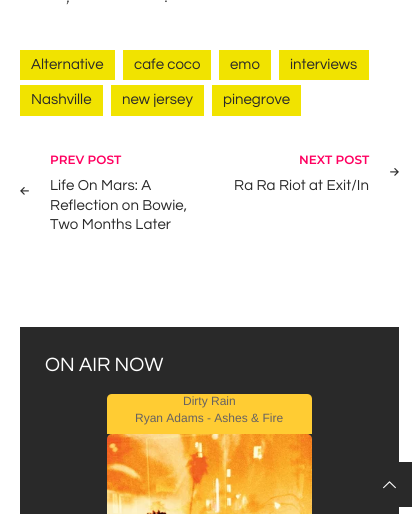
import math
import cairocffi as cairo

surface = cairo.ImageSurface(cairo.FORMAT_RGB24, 419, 514)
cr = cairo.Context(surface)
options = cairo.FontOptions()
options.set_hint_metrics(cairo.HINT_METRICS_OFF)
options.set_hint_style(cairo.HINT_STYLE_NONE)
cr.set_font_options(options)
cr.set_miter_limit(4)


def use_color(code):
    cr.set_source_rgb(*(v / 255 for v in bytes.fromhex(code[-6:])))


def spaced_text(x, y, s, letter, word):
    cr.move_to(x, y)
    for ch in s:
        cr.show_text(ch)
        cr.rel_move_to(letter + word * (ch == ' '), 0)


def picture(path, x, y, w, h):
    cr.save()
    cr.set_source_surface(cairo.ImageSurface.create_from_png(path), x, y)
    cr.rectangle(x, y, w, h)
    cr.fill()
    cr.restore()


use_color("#ffffff")
cr.paint()
cr.select_font_face("Montserrat", cairo.FONT_SLANT_ITALIC)
cr.set_font_size(15)
use_color("#292929")
cr.move_to(67, 2)
cr.show_text(",")
cr.move_to(165, 2)
cr.show_text(".")
use_color("#f1e300")
cr.rectangle(20, 50, 95, 30)
cr.fill()
cr.select_font_face("Questrial")
use_color("#292929")
cr.move_to(31, 69)
cr.show_text("Alternative")
use_color("#f1e300")
cr.rectangle(123, 50, 88, 30)
cr.fill()
use_color("#292929")
cr.move_to(134, 69)
cr.show_text("cafe coco")
use_color("#f1e300")
cr.rectangle(219, 50, 52, 30)
cr.fill()
use_color("#292929")
cr.move_to(230, 69)
cr.show_text("emo")
use_color("#f1e300")
cr.rectangle(279, 50, 90, 30)
cr.fill()
use_color("#292929")
cr.move_to(290, 69)
cr.show_text("interviews")
use_color("#f1e300")
cr.rectangle(20, 85, 83, 31)
cr.fill()
use_color("#292929")
cr.move_to(31, 104)
cr.show_text("Nashville")
use_color("#f1e300")
cr.rectangle(111, 85, 93, 31)
cr.fill()
use_color("#292929")
cr.move_to(122, 104)
cr.show_text("new jersey")
use_color("#f1e300")
cr.rectangle(212, 85, 89, 31)
cr.fill()
use_color("#292929")
cr.move_to(223, 104)
cr.show_text("pinegrove")
cr.select_font_face("Montserrat SemiBold")
cr.set_font_size(12)
use_color("#ff0060")
cr.move_to(50, 164)
cr.show_text("PREV POST")
picture("img1.png", 20, 187, 9, 8)
cr.select_font_face("Questrial")
cr.set_font_size(15)
use_color("#292929")
spaced_text(50, 190, "Life On Mars: A", 0.1, 0)
spaced_text(50, 210, "Reflection on Bowie,", 0.1, 0)
spaced_text(50, 229, "Two Months Later", 0.1, 0)
cr.select_font_face("Montserrat SemiBold")
cr.set_font_size(12)
use_color("#ff0060")
cr.move_to(299, 164)
cr.show_text("NEXT POST")
picture("img2.png", 390, 168, 9, 8)
cr.select_font_face("Questrial")
cr.set_font_size(15)
use_color("#292929")
spaced_text(234, 190, "Ra Ra Riot at Exit/In", 0.1, 0)
cr.rectangle(20, 327, 379, 187)
cr.fill()
cr.set_font_size(20)
use_color("#ffffff")
cr.move_to(45, 371)
cr.show_text("ON AIR NOW")
use_color("#ffcc33")
cr.new_path()
cr.move_to(112, 394)
cr.line_to(307, 394)
cr.curve_to(310, 394, 312, 396, 312, 399)
cr.line_to(312, 434)
cr.line_to(107, 434)
cr.line_to(107, 399)
cr.curve_to(107, 396, 109, 394, 112, 394)
cr.close_path()
cr.fill()
cr.select_font_face("Liberation Sans")
cr.set_font_size(12)
use_color("#676261")
cr.move_to(183, 405)
cr.show_text("Dirty Rain")
cr.move_to(135, 422)
cr.show_text("Ryan Adams - Ashes & Fire")
picture("img3.png", 107, 434, 205, 80)
use_color("#292929")
cr.rectangle(399, 462, 13, 45)
cr.fill()
picture("img4.png", 383, 481, 13, 8)
surface.write_to_png("result.png")
